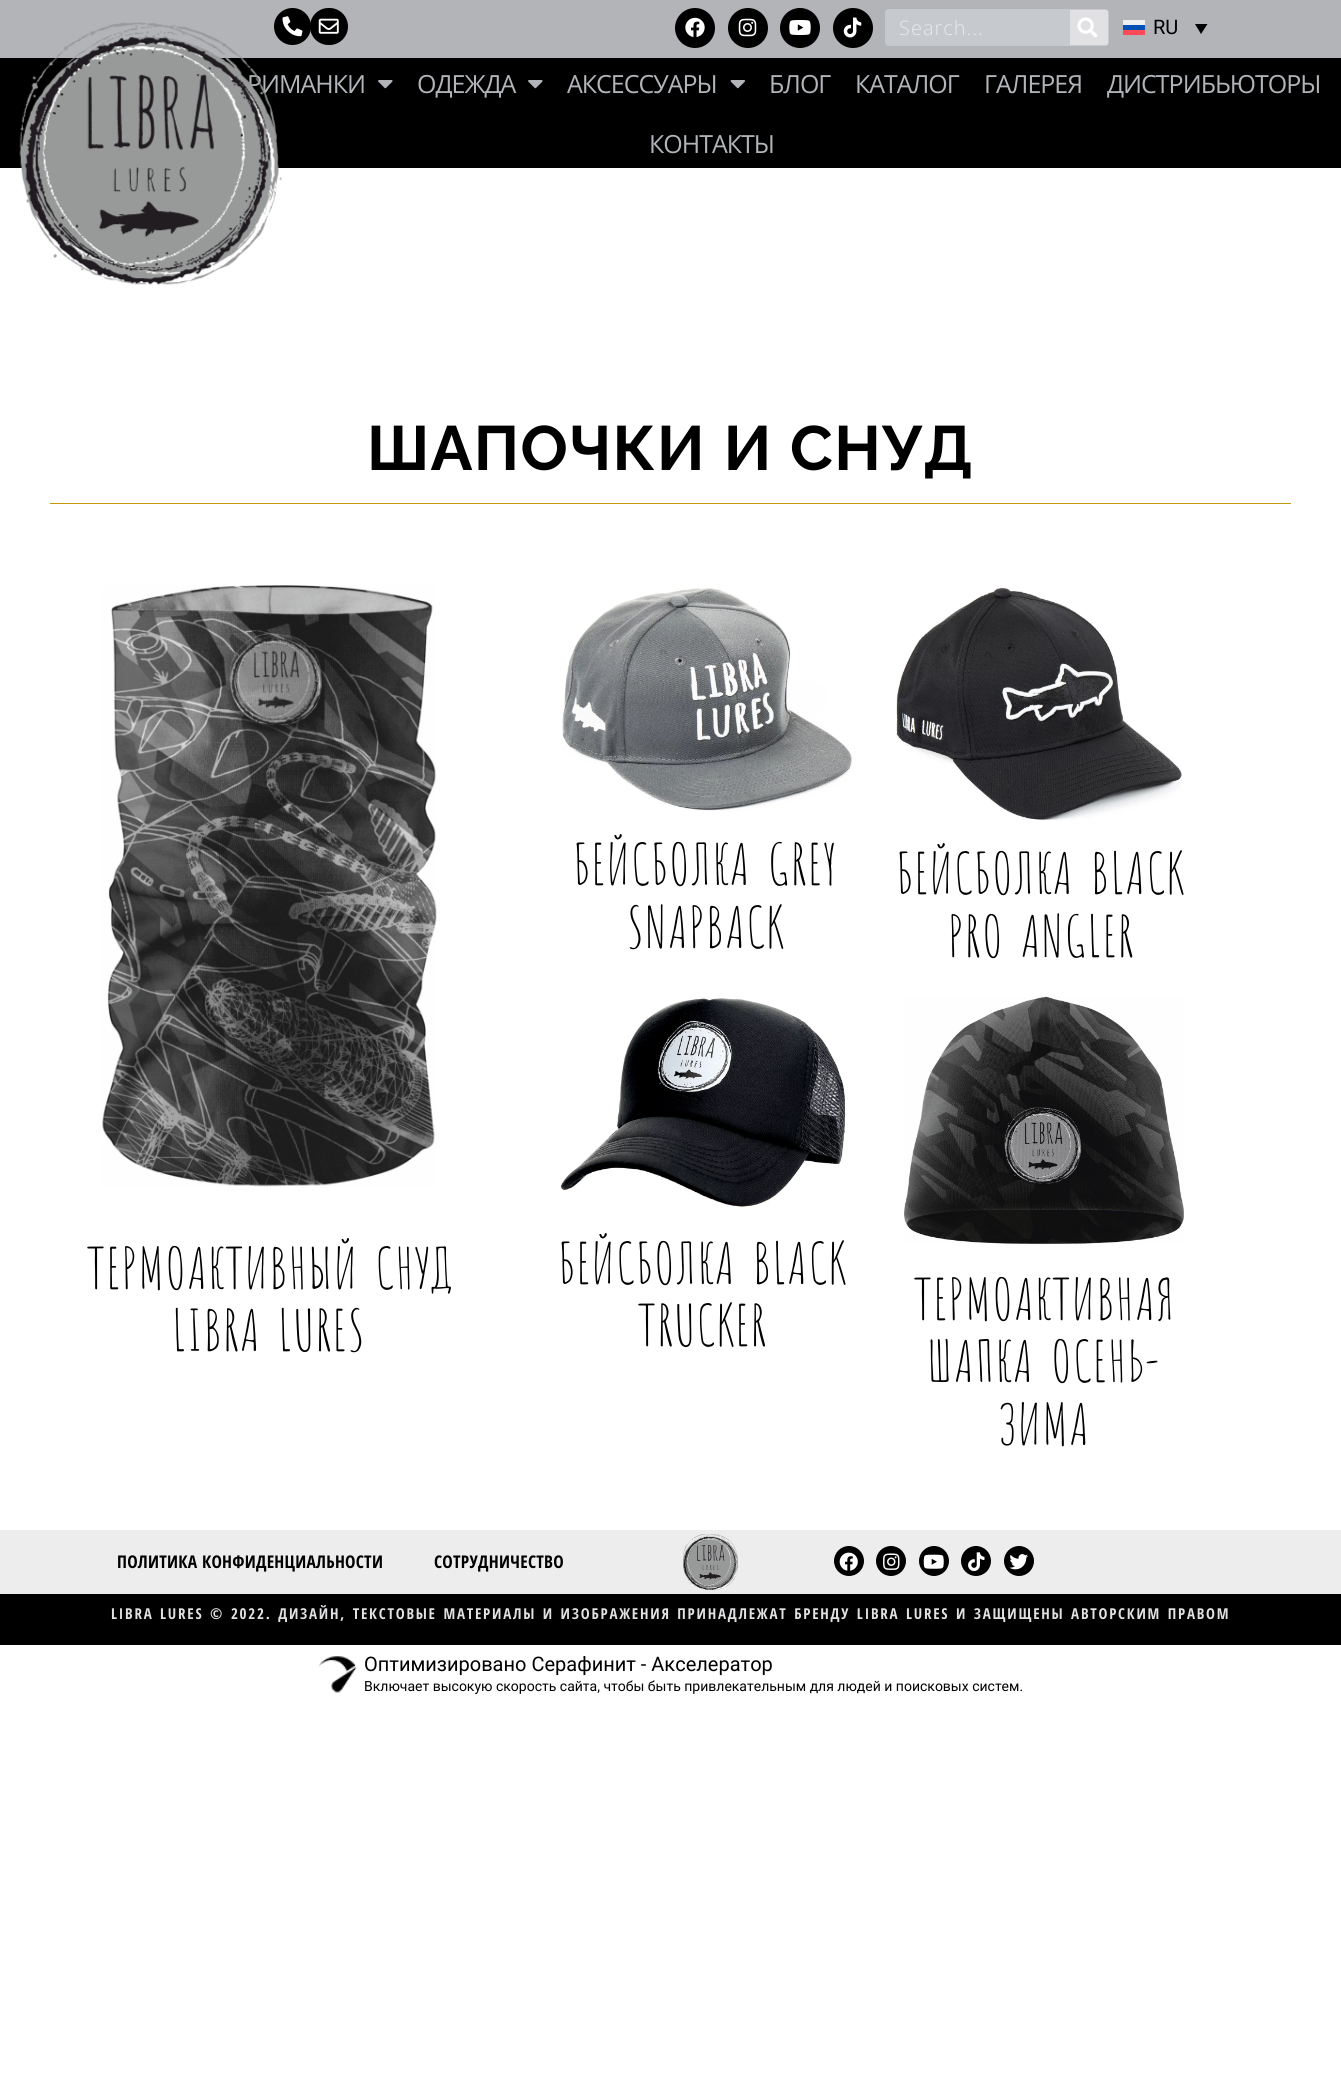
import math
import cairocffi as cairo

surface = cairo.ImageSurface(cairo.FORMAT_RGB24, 1341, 2096)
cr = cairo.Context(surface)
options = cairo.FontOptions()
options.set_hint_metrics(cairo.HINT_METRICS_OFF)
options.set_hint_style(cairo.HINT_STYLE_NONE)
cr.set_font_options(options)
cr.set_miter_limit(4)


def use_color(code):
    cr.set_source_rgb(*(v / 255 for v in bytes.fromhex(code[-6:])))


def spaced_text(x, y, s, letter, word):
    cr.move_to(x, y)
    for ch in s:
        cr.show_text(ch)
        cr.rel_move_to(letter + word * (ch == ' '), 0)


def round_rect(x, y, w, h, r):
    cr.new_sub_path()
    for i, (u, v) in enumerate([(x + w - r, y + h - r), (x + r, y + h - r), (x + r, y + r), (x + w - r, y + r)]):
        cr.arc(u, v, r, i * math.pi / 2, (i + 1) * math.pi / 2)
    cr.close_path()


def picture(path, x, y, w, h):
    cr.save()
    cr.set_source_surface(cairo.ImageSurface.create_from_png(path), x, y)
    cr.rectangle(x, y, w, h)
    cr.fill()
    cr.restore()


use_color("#ffffff")
cr.paint()
use_color("#b2b4b8")
cr.rectangle(0, 0, 1341, 58)
cr.fill()
use_color("#000000")
cr.rectangle(0, 58, 1341, 110)
cr.fill()
cr.select_font_face("Open Sans")
cr.set_font_size(25)
use_color("#b1b4b8")
spaced_text(247, 93, "РИМАНКИ", -1, 0)
picture("img1.png", 19, 22, 263, 263)
use_color("#000000")
cr.arc(292.5, 26.5, 18.5, 0, 2 * math.pi)
cr.fill()
picture("img2.png", 282, 16, 21, 21)
round_rect(310, 8, 38, 37, 18.5)
cr.fill()
picture("img3.png", 318, 18, 21, 16)
cr.arc(695, 28, 20, 0, 2 * math.pi)
cr.fill()
picture("img4.png", 685, 17, 20, 20)
cr.arc(748, 28, 20, 0, 2 * math.pi)
cr.fill()
picture("img5.png", 738, 18, 19, 19)
cr.arc(800, 28, 20, 0, 2 * math.pi)
cr.fill()
picture("img6.png", 789, 20, 22, 15)
cr.arc(853, 28, 20, 0, 2 * math.pi)
cr.fill()
picture("img7.png", 843, 17, 19, 21)
use_color("#c6c9ce")
round_rect(885, 9, 224, 37, 4)
cr.fill()
cr.select_font_face("Open Sans Light")
cr.set_font_size(20)
use_color("#e8e9eb")
spaced_text(899, 35, "Search...", 1, 0)
use_color("#e1e1e3")
cr.new_path()
cr.move_to(1070, 10)
cr.line_to(1105.5, 10)
cr.curve_to(1107, 10, 1108, 11, 1108, 12.5)
cr.line_to(1108, 42.5)
cr.curve_to(1108, 44, 1107, 45, 1105.5, 45)
cr.line_to(1070, 45)
cr.close_path()
cr.fill()
picture("img8.png", 1077, 17, 21, 21)
use_color("#f0f0f0")
cr.rectangle(1123, 20, 22, 5)
cr.fill()
cr.select_font_face("Roboto")
use_color("#000000")
cr.move_to(1153, 34)
cr.show_text("RU")
use_color("#0052b4")
cr.rectangle(1123, 25, 22, 5)
cr.fill()
use_color("#000000")
cr.new_path()
cr.move_to(1195, 24)
cr.line_to(1207.5, 24)
cr.line_to(1201, 34)
cr.close_path()
cr.fill()
use_color("#ff4b55")
cr.rectangle(1123, 30, 22, 5)
cr.fill()
picture("img9.png", 378, 80, 15, 9)
cr.select_font_face("Open Sans")
cr.set_font_size(25)
use_color("#b1b4b8")
spaced_text(417, 93, "ОДЕЖДА", -1, 0)
picture("img9.png", 528, 80, 15, 9)
spaced_text(567, 93, "АКСЕССУАРЫ", -1, 0)
picture("img10.png", 730, 80, 15, 9)
spaced_text(769, 93, "БЛОГ", -1, 0)
spaced_text(855, 93, "КАТАЛОГ", -1, 0)
spaced_text(984, 93, "ГАЛЕРЕЯ", -1, 0)
spaced_text(1107, 93, "ДИСТРИБЬЮТОРЫ", -1, 0)
spaced_text(649, 153, "КОНТАКТЫ", -1, 0)
cr.select_font_face("Raleway", cairo.FONT_SLANT_NORMAL, cairo.FONT_WEIGHT_BOLD)
cr.set_font_size(62.5)
use_color("#000000")
spaced_text(367, 470, "ШАПОЧКИ И СНУД", 1.25, 1.25)
use_color("#c2970c")
cr.rectangle(50, 503, 1241, 1)
cr.fill()
picture("img11.png", 102, 585, 335, 602)
cr.select_font_face("Amatic SC")
cr.set_font_size(56.25)
use_color("#000000")
spaced_text(87, 1289, "ТЕРМОАКТИВНЫЙ СНУД", 1.25, 6)
spaced_text(172, 1351, "LIBRA LURES", 1.25, 6)
picture("img12.png", 562, 587, 291, 224)
spaced_text(573, 885, "БЕЙСБОЛКА GREY", 1.25, 6)
spaced_text(627, 948, "SNAPBACK", 1.25, 0)
picture("img13.png", 896, 587, 286, 234)
spaced_text(896, 894, "БЕЙСБОЛКА BLACK", 1.25, 6)
spaced_text(948, 957, "PRO ANGLER", 1.25, 6)
picture("img14.png", 560, 998, 286, 209)
spaced_text(558, 1284, "БЕЙСБОЛКА BLACK", 1.25, 6)
spaced_text(638, 1346, "TRUCKER", 1.25, 0)
picture("img15.png", 904, 996, 280, 248)
spaced_text(914, 1320, "ТЕРМОАКТИВНАЯ", 1.25, 0)
spaced_text(927, 1382, "ШАПКА ОСЕНЬ-", 1.25, 6)
spaced_text(999, 1445, "ЗИМА", 1.25, 0)
use_color("#ededed")
cr.rectangle(0, 1530, 1341, 64)
cr.fill()
cr.select_font_face("Open Sans Condensed", cairo.FONT_SLANT_NORMAL, cairo.FONT_WEIGHT_BOLD)
cr.set_font_size(17.5)
use_color("#000000")
spaced_text(117, 1568, "ПОЛИТИКА КОНФИДЕНЦИАЛЬНОСТИ", 0.25, 0)
spaced_text(434, 1568, "СОТРУДНИЧЕСТВО", 0.25, 0)
picture("img16.png", 683, 1534, 56, 56)
cr.arc(849, 1561, 15, 0, 2 * math.pi)
cr.fill()
picture("img17.png", 839, 1552, 19, 19)
cr.arc(891, 1561, 15, 0, 2 * math.pi)
cr.fill()
picture("img18.png", 883, 1553, 17, 17)
cr.arc(934, 1561, 15, 0, 2 * math.pi)
cr.fill()
picture("img19.png", 923, 1554, 21, 15)
cr.arc(976, 1561, 15, 0, 2 * math.pi)
cr.fill()
picture("img20.png", 968, 1552, 17, 20)
cr.arc(1019, 1561, 15, 0, 2 * math.pi)
cr.fill()
picture("img21.png", 1009, 1554, 19, 16)
cr.rectangle(0, 1594, 1341, 51)
cr.fill()
cr.set_font_size(15)
use_color("#e1e1e3")
spaced_text(111, 1619, "LIBRA LURES © 2022. ДИЗАЙН, ТЕКСТОВЫЕ МАТЕРИАЛЫ И ИЗОБРАЖЕНИЯ ПРИНАДЛЕЖАТ БРЕНДУ LIBRA LURES И ЗАЩИЩЕНЫ АВТОРСКИМ ПРАВОМ", 1.75, 1.25)
picture("img22.png", 318, 1656, 39, 37)
cr.select_font_face("Roboto")
cr.set_font_size(20)
use_color("#000000")
cr.move_to(364, 1671)
cr.show_text("Оптимизировано Серафинит - Акселератор")
cr.set_font_size(14)
cr.move_to(364, 1691)
cr.show_text("Включает высокую скорость сайта, чтобы быть привлекательным для людей и поисковых систем.")
surface.write_to_png("result.png")
